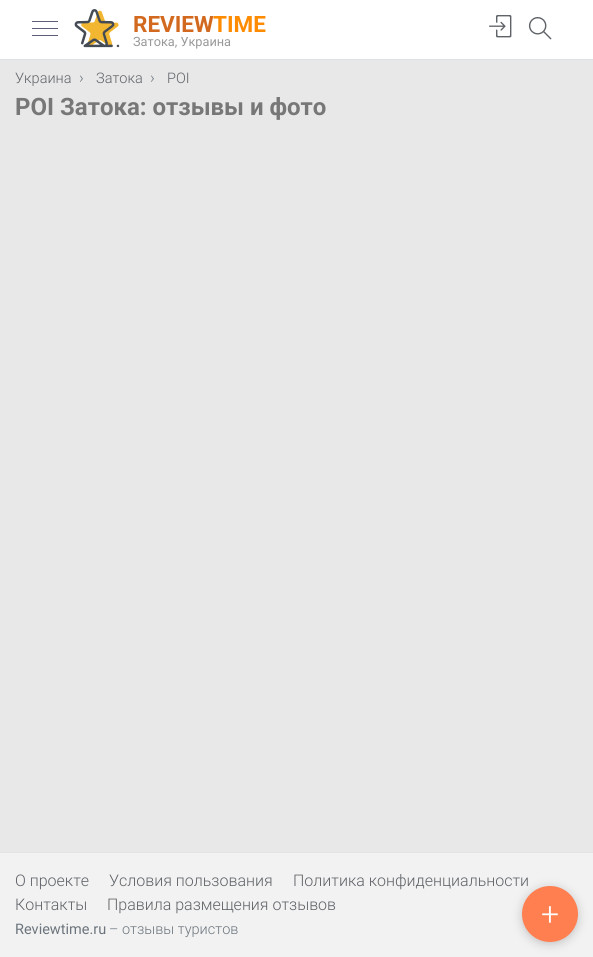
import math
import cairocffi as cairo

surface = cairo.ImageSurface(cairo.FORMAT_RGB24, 593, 957)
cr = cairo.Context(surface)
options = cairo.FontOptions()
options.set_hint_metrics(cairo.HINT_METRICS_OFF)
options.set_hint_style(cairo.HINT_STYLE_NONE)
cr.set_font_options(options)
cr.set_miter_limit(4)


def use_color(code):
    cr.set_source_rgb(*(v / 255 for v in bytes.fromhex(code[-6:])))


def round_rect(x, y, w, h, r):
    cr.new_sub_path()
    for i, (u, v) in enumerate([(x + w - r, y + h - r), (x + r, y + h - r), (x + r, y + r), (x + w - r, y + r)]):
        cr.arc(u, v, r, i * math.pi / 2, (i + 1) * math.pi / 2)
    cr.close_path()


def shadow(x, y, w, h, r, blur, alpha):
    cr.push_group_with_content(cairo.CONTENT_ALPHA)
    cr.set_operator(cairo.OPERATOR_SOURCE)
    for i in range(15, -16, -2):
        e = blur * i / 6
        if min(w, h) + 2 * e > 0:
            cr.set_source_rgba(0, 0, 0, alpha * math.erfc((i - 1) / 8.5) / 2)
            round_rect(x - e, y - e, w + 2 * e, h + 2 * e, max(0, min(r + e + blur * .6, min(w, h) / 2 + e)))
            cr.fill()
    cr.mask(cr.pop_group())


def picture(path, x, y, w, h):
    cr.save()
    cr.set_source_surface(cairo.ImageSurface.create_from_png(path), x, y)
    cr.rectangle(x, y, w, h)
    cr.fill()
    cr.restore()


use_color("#e8e8e8")
cr.paint()
use_color("#ffffff")
cr.rectangle(0, 0, 593, 59)
cr.fill()
use_color("#dee2e6")
cr.rectangle(0, 59, 593, 1)
cr.fill()
use_color("#5d5f77")
cr.rectangle(32, 28, 26, 1)
cr.fill()
cr.rectangle(32, 21, 26, 1)
cr.fill()
cr.rectangle(32, 35, 26, 1)
cr.fill()
picture("img1.png", 74, 9, 46, 39)
cr.select_font_face("Roboto", cairo.FONT_SLANT_NORMAL, cairo.FONT_WEIGHT_BOLD)
cr.set_font_size(22.5)
use_color("#d2691e")
cr.move_to(133, 32)
cr.show_text("REVIEW")
use_color("#ff8c00")
cr.move_to(213, 32)
cr.show_text("TIME")
cr.select_font_face("Roboto")
cr.set_font_size(12.75)
use_color("#999999")
cr.move_to(133, 46)
cr.show_text("Затока, Украина")
picture("img2.png", 489, 15, 23, 23)
picture("img3.png", 528, 17, 24, 23)
cr.select_font_face("Roboto Light")
cr.set_font_size(14.5)
use_color("#5f6368")
cr.move_to(15, 83)
cr.show_text("Украина")
cr.set_font_size(16)
use_color("#6c757d")
cr.move_to(79, 83)
cr.show_text("›")
cr.set_font_size(14.5)
use_color("#5f6368")
cr.move_to(96, 83)
cr.show_text("Затока")
cr.set_font_size(16)
use_color("#6c757d")
cr.move_to(150, 83)
cr.show_text("›")
cr.set_font_size(14.5)
use_color("#5f6368")
cr.move_to(167, 83)
cr.show_text("POI")
cr.select_font_face("Roboto", cairo.FONT_SLANT_NORMAL, cairo.FONT_WEIGHT_BOLD)
cr.set_font_size(24)
use_color("#777777")
cr.move_to(15, 115)
cr.show_text("POI Затока: отзывы и фото")
use_color("#f2f2f2")
cr.rectangle(0, 853, 593, 104)
cr.fill()
use_color("#e4e4e4")
cr.rectangle(0, 852, 593, 1)
cr.fill()
cr.select_font_face("Roboto Light")
cr.set_font_size(16)
use_color("#5f6368")
cr.move_to(15, 886)
cr.show_text("О проекте")
cr.move_to(109, 886)
cr.show_text("Условия пользования")
cr.move_to(293, 886)
cr.show_text("Политика конфиденциальности")
cr.move_to(15, 910)
cr.show_text("Контакты")
cr.move_to(107, 910)
cr.show_text("Правила размещения отзывов")
cr.select_font_face("Roboto")
cr.set_font_size(14.5)
use_color("#6c757d")
cr.move_to(15, 934)
cr.show_text("Reviewtime.ru")
cr.select_font_face("Roboto Light")
cr.move_to(109, 934)
cr.show_text("– отзывы туристов")
use_color("#000000")
shadow(522, 888, 56, 56, 28, 5, 0.2)
use_color("#ff7f50")
cr.arc(550, 914, 28, 0, 2 * math.pi)
cr.fill()
cr.set_font_size(32)
use_color("#ffffff")
cr.move_to(541, 925)
cr.show_text("+")
surface.write_to_png("result.png")
